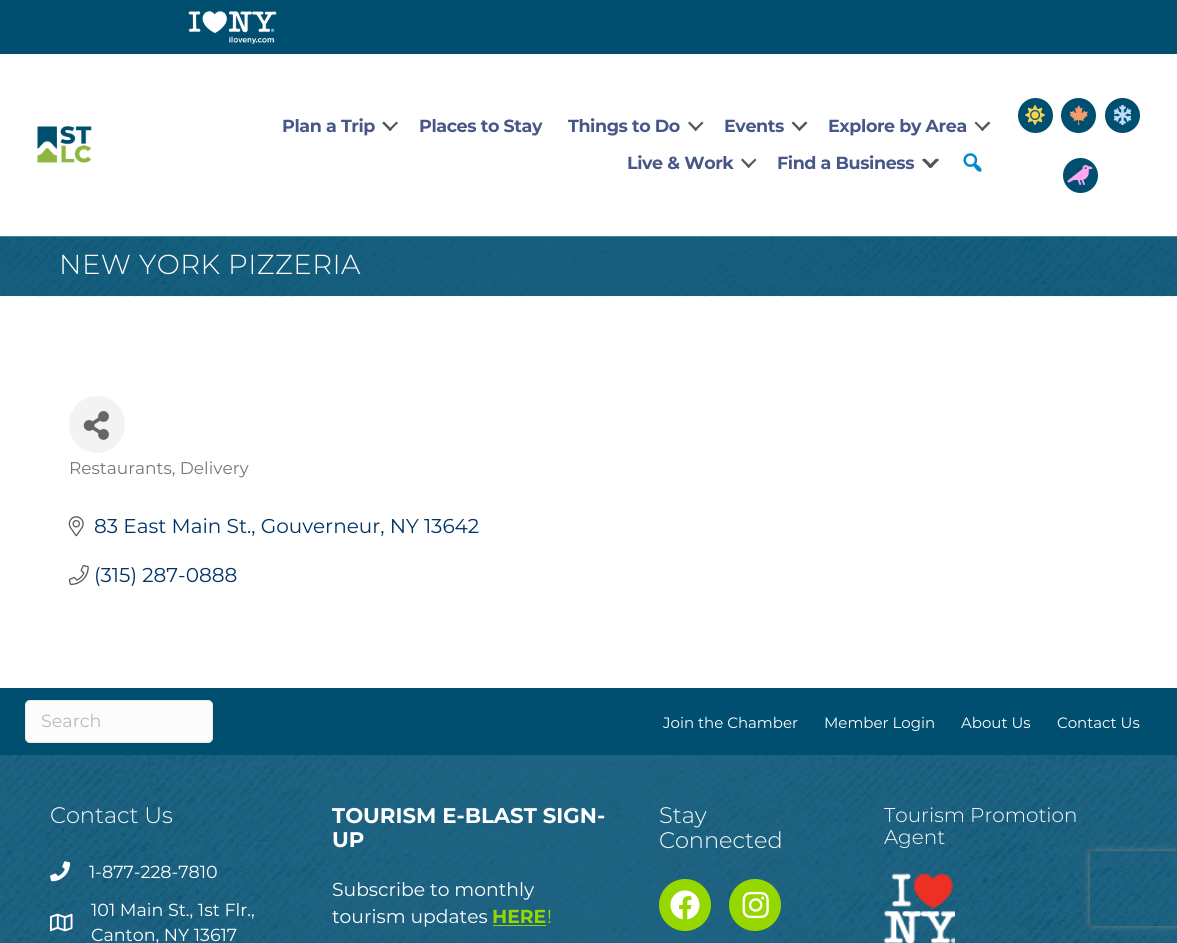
import math
import cairocffi as cairo

surface = cairo.ImageSurface(cairo.FORMAT_RGB24, 1177, 943)
cr = cairo.Context(surface)
options = cairo.FontOptions()
options.set_hint_metrics(cairo.HINT_METRICS_OFF)
options.set_hint_style(cairo.HINT_STYLE_NONE)
cr.set_font_options(options)
cr.set_miter_limit(4)


def use_color(code):
    cr.set_source_rgb(*(v / 255 for v in bytes.fromhex(code[-6:])))


def spaced_text(x, y, s, letter, word):
    cr.move_to(x, y)
    for ch in s:
        cr.show_text(ch)
        cr.rel_move_to(letter + word * (ch == ' '), 0)


def round_rect(x, y, w, h, r):
    cr.new_sub_path()
    for i, (u, v) in enumerate([(x + w - r, y + h - r), (x + r, y + h - r), (x + r, y + r), (x + w - r, y + r)]):
        cr.arc(u, v, r, i * math.pi / 2, (i + 1) * math.pi / 2)
    cr.close_path()


def shadow(x, y, w, h, r, blur, alpha):
    cr.push_group_with_content(cairo.CONTENT_ALPHA)
    cr.set_operator(cairo.OPERATOR_SOURCE)
    for i in range(15, -16, -2):
        e = blur * i / 6
        if min(w, h) + 2 * e > 0:
            cr.set_source_rgba(0, 0, 0, alpha * math.erfc((i - 1) / 8.5) / 2)
            round_rect(x - e, y - e, w + 2 * e, h + 2 * e, max(0, min(r + e + blur * .6, min(w, h) / 2 + e)))
            cr.fill()
    cr.mask(cr.pop_group())


def picture(path, x, y, w, h):
    cr.save()
    cr.set_source_surface(cairo.ImageSurface.create_from_png(path), x, y)
    cr.rectangle(x, y, w, h)
    cr.fill()
    cr.restore()


use_color("#ffffff")
cr.paint()
use_color("#004f71")
cr.rectangle(0, 0, 1177, 54)
cr.fill()
picture("img1.png", 188, 11, 89, 33)
picture("img2.png", 37, 126, 55, 37)
cr.select_font_face("Montserrat", cairo.FONT_SLANT_NORMAL, cairo.FONT_WEIGHT_BOLD)
cr.set_font_size(17.5)
use_color("#475888")
spaced_text(282, 132, "Plan a Trip", -0.4, 0)
use_color("#555555")
cr.new_path()
cr.move_to(396.5, 121.5)
cr.line_to(398, 123)
cr.line_to(390, 131)
cr.line_to(388.5, 129.5)
cr.close_path()
cr.fill()
cr.new_path()
cr.move_to(384, 121.5)
cr.line_to(392, 129.5)
cr.line_to(390, 131)
cr.line_to(382, 123)
cr.close_path()
cr.fill()
use_color("#475888")
spaced_text(419, 132, "Places to Stay", -0.4, 0)
spaced_text(568, 132, "Things to Do", -0.4, 0)
use_color("#555555")
cr.new_path()
cr.move_to(702, 121.5)
cr.line_to(703.5, 123)
cr.line_to(695.5, 131)
cr.line_to(694, 129.5)
cr.close_path()
cr.fill()
cr.new_path()
cr.move_to(689.5, 121.5)
cr.line_to(697.5, 129.5)
cr.line_to(695.5, 131)
cr.line_to(688, 123)
cr.close_path()
cr.fill()
use_color("#475888")
spaced_text(724, 132, "Events", -0.4, 0)
use_color("#555555")
cr.new_path()
cr.move_to(805.5, 121.5)
cr.line_to(807.5, 123)
cr.line_to(799.5, 131)
cr.line_to(797.5, 129.5)
cr.close_path()
cr.fill()
cr.new_path()
cr.move_to(793.5, 121.5)
cr.line_to(801, 129.5)
cr.line_to(799.5, 131)
cr.line_to(791.5, 123)
cr.close_path()
cr.fill()
use_color("#475888")
spaced_text(828, 132, "Explore by Area", -0.4, 0)
use_color("#555555")
cr.new_path()
cr.move_to(988.5, 121.5)
cr.line_to(990.5, 123)
cr.line_to(982.5, 131)
cr.line_to(980.5, 129.5)
cr.close_path()
cr.fill()
cr.new_path()
cr.move_to(976, 121.5)
cr.line_to(984, 129.5)
cr.line_to(982.5, 131)
cr.line_to(974.5, 123)
cr.close_path()
cr.fill()
use_color("#475888")
spaced_text(627, 169, "Live & Work", -0.4, 0)
use_color("#555555")
cr.new_path()
cr.move_to(755, 158.5)
cr.line_to(756.5, 160)
cr.line_to(748.5, 168)
cr.line_to(747, 166.5)
cr.close_path()
cr.fill()
cr.new_path()
cr.move_to(742.5, 158.5)
cr.line_to(750.5, 166.5)
cr.line_to(748.5, 168)
cr.line_to(741, 160)
cr.close_path()
cr.fill()
use_color("#475888")
spaced_text(777, 169, "Find a Business", -0.4, 0)
use_color("#555555")
cr.new_path()
cr.move_to(936, 158.5)
cr.line_to(938, 160)
cr.line_to(930, 168)
cr.line_to(928, 166.5)
cr.close_path()
cr.fill()
cr.new_path()
cr.move_to(923.5, 158.5)
cr.line_to(931.5, 166.5)
cr.line_to(930, 168)
cr.line_to(922, 160)
cr.close_path()
cr.fill()
cr.new_path()
cr.move_to(937.5, 158.5)
cr.line_to(939, 160)
cr.line_to(931, 168)
cr.line_to(929.5, 166.5)
cr.close_path()
cr.fill()
cr.new_path()
cr.move_to(925, 158.5)
cr.line_to(933, 166.5)
cr.line_to(931, 168)
cr.line_to(923, 160)
cr.close_path()
cr.fill()
picture("img3.png", 963, 153, 19, 19)
use_color("#004f71")
cr.arc(1035.5, 115.5, 17.5, 0, 2 * math.pi)
cr.fill()
picture("img4.png", 1025, 105, 20, 20)
cr.arc(1078.5, 115.5, 17.5, 0, 2 * math.pi)
cr.fill()
picture("img5.png", 1069, 105, 19, 20)
cr.arc(1122.5, 115.5, 17.5, 0, 2 * math.pi)
cr.fill()
picture("img6.png", 1113, 105, 19, 20)
cr.arc(1080.5, 175.5, 17.5, 0, 2 * math.pi)
cr.fill()
picture("img7.png", 1067, 165, 26, 20)
picture("img8.png", 0, 236, 1177, 61)
cr.select_font_face("Montserrat Light")
cr.set_font_size(27.5)
use_color("#ffffff")
spaced_text(59, 274, "NEW YORK PIZZERIA", 0.5, 0)
use_color("#f3f3f3")
round_rect(69, 396, 56, 57, 28)
cr.fill()
picture("img9.png", 83, 411, 26, 29)
cr.select_font_face("Montserrat")
cr.set_font_size(17)
use_color("#777777")
cr.move_to(69, 474)
cr.show_text("Restaurants, Delivery")
picture("img10.png", 68, 516, 16, 21)
cr.set_font_size(20)
use_color("#003366")
cr.move_to(94, 533)
cr.show_text("83 East Main St., Gouverneur, NY 13642")
picture("img11.png", 68, 565, 21, 20)
cr.move_to(94, 582)
cr.show_text("(315) 287-0888")
use_color("#004f71")
cr.rectangle(0, 688, 1177, 67)
cr.fill()
use_color("#fcfcfc")
round_rect(25.5, 700.5, 187, 42, 4.5)
cr.fill_preserve()
use_color("#e6e6e6")
cr.set_line_width(1)
cr.stroke()
cr.set_font_size(17.5)
use_color("#b9b9b9")
cr.move_to(41, 727)
cr.show_text("Search")
cr.set_font_size(15)
use_color("#ffffff")
cr.move_to(663, 728)
cr.show_text("Join the Chamber")
cr.move_to(824, 728)
cr.show_text("Member Login")
cr.move_to(961, 728)
cr.show_text("About Us")
cr.move_to(1057, 728)
cr.show_text("Contact Us")
picture("img12.png", 0, 755, 1177, 188)
cr.select_font_face("Montserrat Light")
cr.set_font_size(22.5)
cr.move_to(50, 823)
cr.show_text("Contact Us")
picture("img13.png", 50, 861, 20, 21)
cr.select_font_face("Montserrat")
cr.set_font_size(17.5)
cr.move_to(89, 878)
cr.show_text("1-877-228-7810")
picture("img14.png", 50, 913, 23, 19)
cr.move_to(91, 916)
cr.show_text("101 Main St., 1st Flr.,")
cr.move_to(91, 941)
cr.show_text("Canton, NY 13617")
cr.select_font_face("Montserrat", cairo.FONT_SLANT_NORMAL, cairo.FONT_WEIGHT_BOLD)
cr.set_font_size(21.25)
cr.move_to(332, 823)
cr.show_text("TOURISM E-BLAST SIGN-")
cr.move_to(332, 847)
cr.show_text("UP")
cr.select_font_face("Montserrat")
cr.set_font_size(18.75)
cr.move_to(332, 896)
cr.show_text("Subscribe to monthly")
cr.move_to(332, 923)
cr.show_text("tourism updates")
cr.select_font_face("Montserrat", cairo.FONT_SLANT_NORMAL, cairo.FONT_WEIGHT_BOLD)
use_color("#97d700")
cr.move_to(492, 923)
cr.show_text("HERE")
cr.rectangle(493, 925, 53, 1)
cr.fill()
cr.select_font_face("Montserrat")
cr.move_to(547, 923)
cr.show_text("!")
cr.select_font_face("Montserrat Light")
cr.set_font_size(22.5)
use_color("#ffffff")
cr.move_to(659, 823)
cr.show_text("Stay")
cr.move_to(659, 848)
cr.show_text("Connected")
use_color("#97d700")
cr.new_path()
cr.arc(685, 905, 26, 0, 2 * math.pi)
cr.fill()
picture("img15.png", 670, 890, 30, 30)
cr.arc(755, 905, 26, 0, 2 * math.pi)
cr.fill()
picture("img16.png", 742, 891, 27, 28)
cr.set_font_size(20)
use_color("#ffffff")
cr.move_to(884, 822)
cr.show_text("Tourism Promotion")
cr.move_to(884, 844)
cr.show_text("Agent")
picture("img17.png", 883, 873, 72, 70)
cr.save()
cr.set_fill_rule(cairo.FILL_RULE_EVEN_ODD)
cr.new_path()
cr.move_to(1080, 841)
cr.line_to(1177, 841)
cr.line_to(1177, 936)
cr.line_to(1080, 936)
cr.close_path()
cr.move_to(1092.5, 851)
cr.line_to(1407.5, 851)
cr.curve_to(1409, 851, 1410, 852, 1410, 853.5)
cr.line_to(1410, 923.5)
cr.curve_to(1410, 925, 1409, 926, 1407.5, 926)
cr.line_to(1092.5, 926)
cr.curve_to(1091, 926, 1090, 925, 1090, 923.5)
cr.line_to(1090, 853.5)
cr.curve_to(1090, 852, 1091, 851, 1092.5, 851)
cr.close_path()
cr.clip()
use_color("#808080")
shadow(1090, 851, 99, 75, 2.5, 3, 1)
cr.restore()
surface.write_to_png("result.png")
